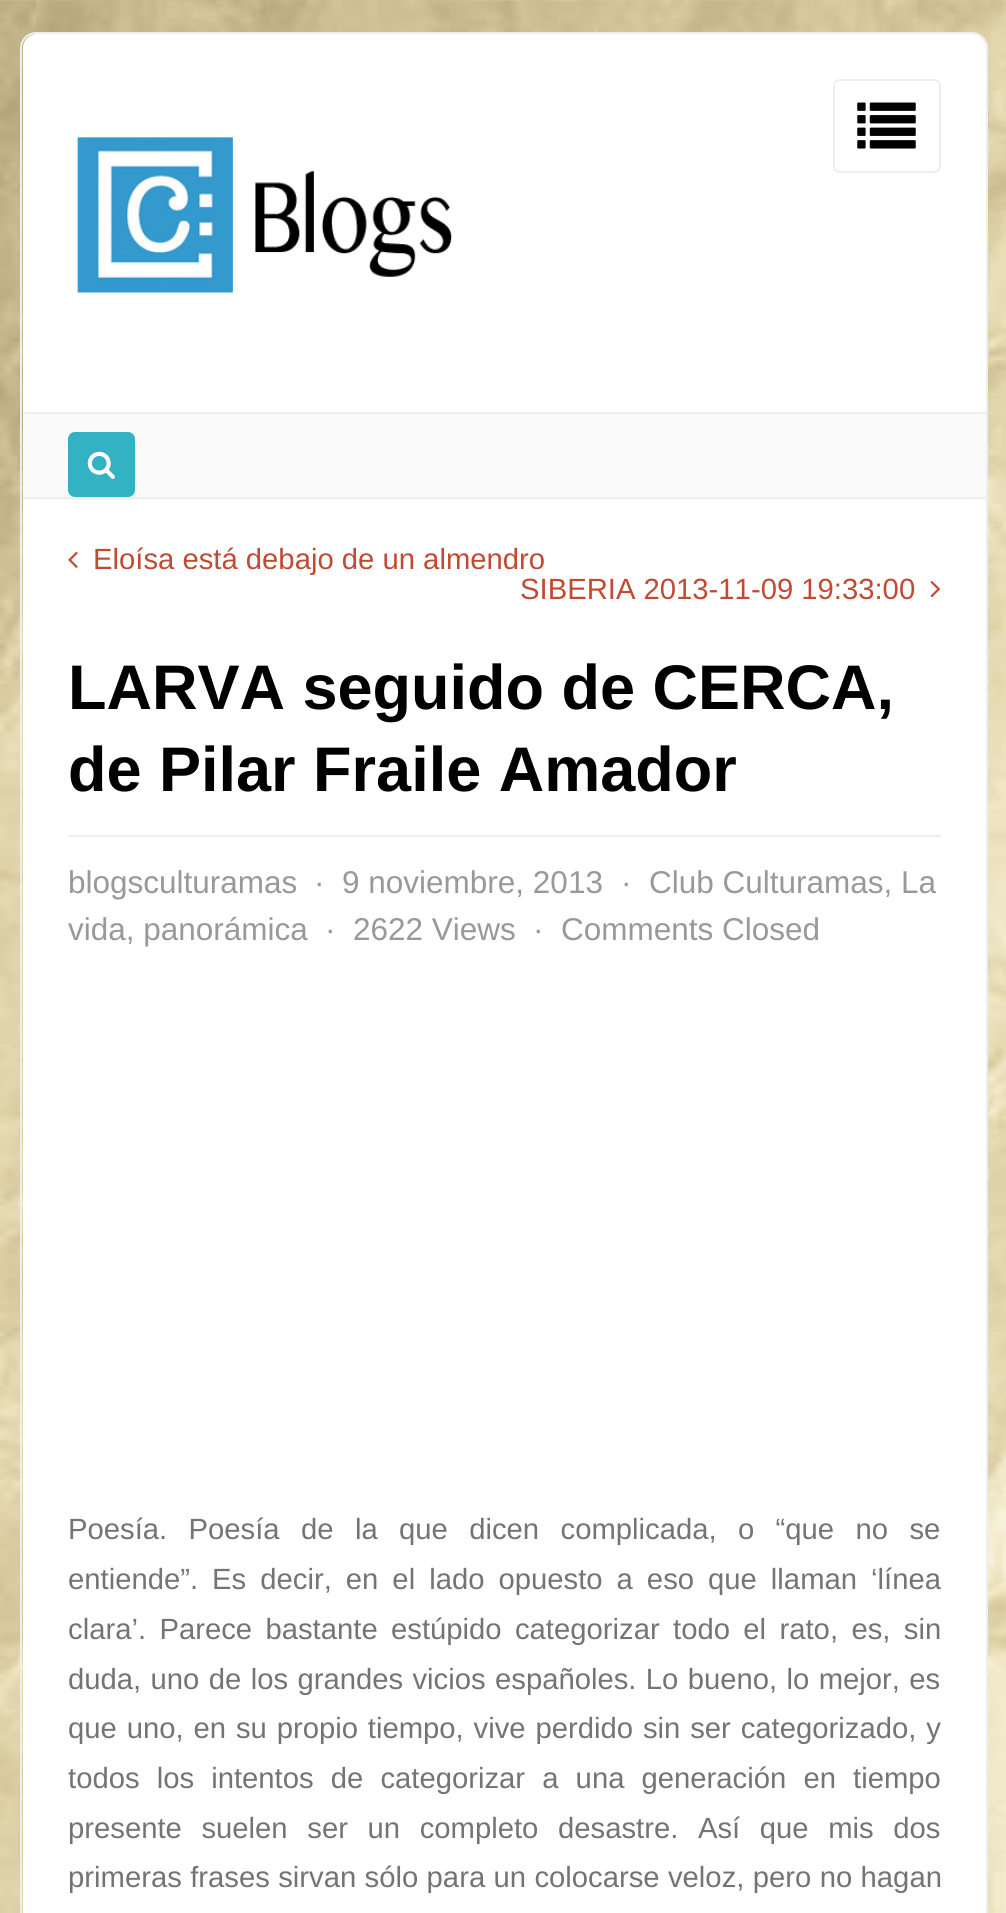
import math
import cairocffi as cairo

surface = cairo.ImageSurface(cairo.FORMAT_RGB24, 1006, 1913)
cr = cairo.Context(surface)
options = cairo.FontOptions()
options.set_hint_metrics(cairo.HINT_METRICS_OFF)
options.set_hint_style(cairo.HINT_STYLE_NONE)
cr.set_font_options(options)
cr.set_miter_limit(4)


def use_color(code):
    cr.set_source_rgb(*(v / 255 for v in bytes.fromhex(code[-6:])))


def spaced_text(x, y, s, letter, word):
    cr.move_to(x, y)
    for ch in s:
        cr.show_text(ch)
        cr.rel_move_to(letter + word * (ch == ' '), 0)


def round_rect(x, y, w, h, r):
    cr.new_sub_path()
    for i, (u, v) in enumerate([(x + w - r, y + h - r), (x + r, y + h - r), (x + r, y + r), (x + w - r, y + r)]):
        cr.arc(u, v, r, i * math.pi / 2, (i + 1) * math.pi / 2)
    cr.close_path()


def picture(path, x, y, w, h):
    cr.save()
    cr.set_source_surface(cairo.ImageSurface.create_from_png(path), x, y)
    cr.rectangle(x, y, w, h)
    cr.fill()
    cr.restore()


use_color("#ffffff")
cr.paint()
picture("img1.png", 0, 0, 1006, 1913)
round_rect(21, 33, 966, 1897, 15)
use_color("#eeeeee")
cr.stroke()
use_color("#ffffff")
round_rect(23, 34, 963, 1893, 14)
cr.fill()
round_rect(834, 80, 106, 92, 6)
use_color("#eeeeee")
cr.stroke()
picture("img2.png", 857, 102, 59, 47)
picture("img3.png", 77, 137, 375, 156)
use_color("#fafafa")
cr.rectangle(23, 414, 963, 86)
cr.fill()
use_color("#eeeeee")
cr.rectangle(23, 412, 963, 2)
cr.fill()
cr.rectangle(23, 497, 963, 2)
cr.fill()
use_color("#32b2c3")
round_rect(68, 432, 67, 65, 7)
cr.fill()
picture("img4.png", 87, 451, 28, 28)
picture("img5.png", 68, 551, 10, 17)
cr.select_font_face("Liberation Sans")
cr.set_font_size(29.25)
use_color("#c34a32")
cr.move_to(93, 569)
cr.show_text("Eloísa está debajo de un almendro")
cr.move_to(520, 599)
cr.show_text("SIBERIA 2013-11-09 19:33:00")
picture("img6.png", 930, 581, 10, 17)
use_color("#eeeeee")
cr.rectangle(68, 835, 873, 2)
cr.fill()
cr.select_font_face("Liberation Sans", cairo.FONT_SLANT_NORMAL, cairo.FONT_WEIGHT_BOLD)
cr.set_font_size(63)
use_color("#000000")
cr.move_to(68, 709)
cr.show_text("LARVA seguido de CERCA,")
cr.move_to(68, 791)
cr.show_text("de Pilar Fraile Amador")
cr.select_font_face("Liberation Sans")
cr.set_font_size(31.5)
use_color("#999999")
cr.move_to(68, 893)
cr.show_text("blogsculturamas")
cr.move_to(314, 893)
cr.show_text("·")
cr.move_to(342, 893)
cr.show_text("9 noviembre, 2013")
cr.move_to(621, 893)
cr.show_text("·")
cr.move_to(649, 893)
cr.show_text("Club Culturamas, La")
cr.move_to(68, 940)
cr.show_text("vida, panorámica")
cr.move_to(325, 940)
cr.show_text("·")
cr.move_to(353, 940)
cr.show_text("2622 Views")
cr.move_to(533, 940)
cr.show_text("·")
cr.move_to(561, 940)
cr.show_text("Comments Closed")
cr.set_font_size(29.25)
use_color("#747474")
spaced_text(68, 1539, "Poesía. Poesía de la que dicen complicada, o “que no se", 0, 13.25)
spaced_text(68, 1589, "entiende”. Es decir, en el lado opuesto a eso que llaman ‘línea", 0, 5.9)
spaced_text(68, 1639, "clara’. Parece bastante estúpido categorizar todo el rato, es, sin", 0, 5.25)
spaced_text(68, 1689, "duda, uno de los grandes vicios españoles. Lo bueno, lo mejor, es", 0, 1.25)
spaced_text(68, 1738, "que uno, en su propio tiempo, vive perdido sin ser categorizado, y", 0, 1.75)
spaced_text(68, 1788, "todos los intentos de categorizar a una generación en tiempo", 0, 9)
spaced_text(68, 1838, "presente suelen ser un completo desastre. Así que mis dos", 0, 11.5)
spaced_text(68, 1887, "primeras frases sirvan sólo para un colocarse veloz, pero no hagan", 0, 0.25)
surface.write_to_png("result.png")
